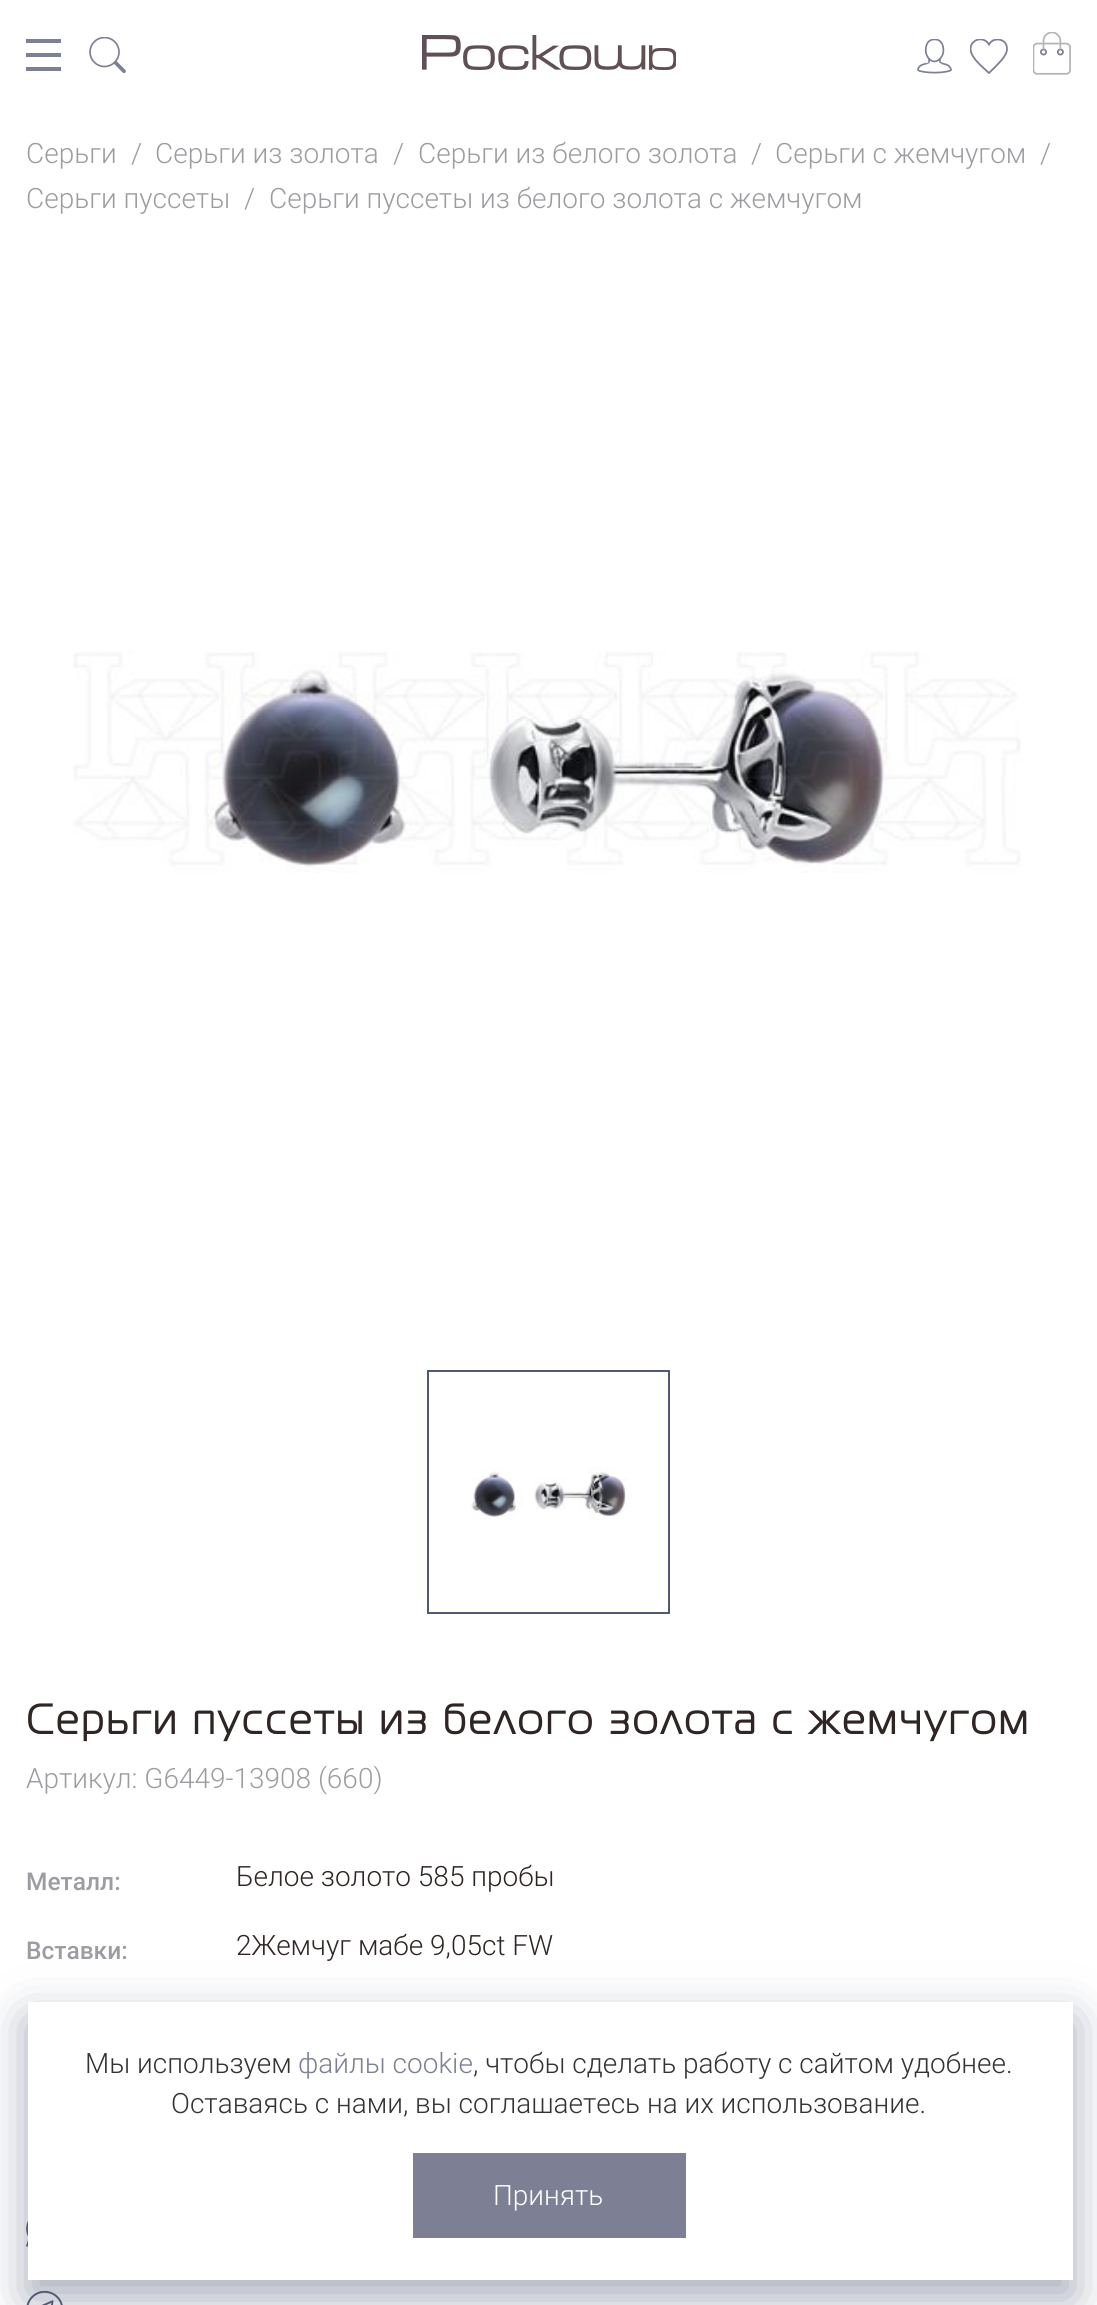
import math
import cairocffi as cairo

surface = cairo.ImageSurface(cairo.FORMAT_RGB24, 1097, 2305)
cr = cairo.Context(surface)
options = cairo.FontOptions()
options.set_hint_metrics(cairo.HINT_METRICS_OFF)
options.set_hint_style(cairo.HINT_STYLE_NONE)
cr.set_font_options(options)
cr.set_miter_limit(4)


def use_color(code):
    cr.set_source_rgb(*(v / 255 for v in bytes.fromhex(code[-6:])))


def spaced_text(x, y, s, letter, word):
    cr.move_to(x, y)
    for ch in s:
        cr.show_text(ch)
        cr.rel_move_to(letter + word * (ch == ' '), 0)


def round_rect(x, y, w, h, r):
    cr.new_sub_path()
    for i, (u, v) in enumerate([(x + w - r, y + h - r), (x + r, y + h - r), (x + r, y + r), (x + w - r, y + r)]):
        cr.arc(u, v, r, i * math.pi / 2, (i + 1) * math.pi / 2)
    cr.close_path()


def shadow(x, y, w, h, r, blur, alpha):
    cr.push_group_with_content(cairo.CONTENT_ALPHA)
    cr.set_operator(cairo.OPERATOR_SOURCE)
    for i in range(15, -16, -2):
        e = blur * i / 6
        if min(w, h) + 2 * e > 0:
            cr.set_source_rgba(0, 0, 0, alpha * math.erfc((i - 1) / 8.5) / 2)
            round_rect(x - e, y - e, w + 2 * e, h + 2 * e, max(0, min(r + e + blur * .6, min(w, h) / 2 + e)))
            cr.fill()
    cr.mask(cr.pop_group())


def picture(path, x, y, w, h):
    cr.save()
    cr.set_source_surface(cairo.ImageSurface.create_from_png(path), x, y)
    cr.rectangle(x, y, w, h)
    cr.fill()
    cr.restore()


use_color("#ffffff")
cr.paint()
use_color("#7d7f94")
cr.rectangle(26, 53, 35, 4)
cr.fill()
cr.rectangle(26, 39, 35, 4)
cr.fill()
cr.rectangle(26, 67, 35, 4)
cr.fill()
picture("img1.png", 89, 37, 37, 37)
picture("img2.png", 422, 35, 254, 35)
picture("img3.png", 917, 39, 35, 35)
cr.save()
cr.rectangle(970, 39, 38, 35)
cr.clip()
cr.new_path()
cr.move_to(997.5, 39.5)
cr.curve_to(994, 39.5, 991, 41, 989, 44.5)
cr.curve_to(982.5, 33.5, 965.5, 41.5, 972, 54.5)
cr.curve_to(975.5, 61.5, 983, 67.5, 989, 73)
cr.curve_to(998.5, 63.5, 1007, 56, 1007, 49)
cr.curve_to(1007, 42.5, 1002.5, 39.5, 997.5, 39.5)
cr.set_line_width(1.8)
cr.stroke()
cr.restore()
picture("img4.png", 1033, 32, 38, 43)
cr.select_font_face("Roboto Light")
cr.set_font_size(28)
use_color("#9e9ca0")
cr.move_to(26, 163)
cr.show_text("Серьги")
cr.move_to(131, 163)
cr.show_text("/")
cr.move_to(155, 163)
cr.show_text("Серьги из золота")
cr.move_to(393, 163)
cr.show_text("/")
cr.move_to(418, 163)
cr.show_text("Серьги из белого золота")
cr.move_to(751, 163)
cr.show_text("/")
cr.move_to(775, 163)
cr.show_text("Серьги с жемчугом")
cr.move_to(1040, 163)
cr.show_text("/")
cr.move_to(26, 208)
cr.show_text("Серьги пуссеты")
cr.move_to(244, 208)
cr.show_text("/")
cr.move_to(269, 208)
cr.show_text("Серьги пуссеты из белого золота с жемчугом")
picture("img5.png", 73, 651, 948, 222)
cr.rectangle(428, 1371, 241, 242)
use_color("#4f5875")
cr.stroke()
picture("img6.png", 470, 1467, 159, 54)
cr.select_font_face("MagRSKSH", cairo.FONT_SLANT_NORMAL, cairo.FONT_WEIGHT_BOLD)
cr.set_font_size(42)
use_color("#2f2524")
spaced_text(26, 1734, "Серьги пуссеты из белого золота с жемчугом", 3.5, 0)
cr.select_font_face("Roboto Light")
cr.set_font_size(28)
use_color("#9e9ca0")
cr.move_to(26, 1788)
cr.show_text("Артикул: G6449-13908 (660)")
cr.select_font_face("Roboto Medium")
cr.set_font_size(24.5)
cr.move_to(26, 1890)
cr.show_text("Металл:")
cr.select_font_face("Roboto Light")
cr.set_font_size(28)
use_color("#2f2524")
cr.move_to(236, 1886)
cr.show_text("Белое золото 585 пробы")
cr.select_font_face("Roboto Medium")
cr.set_font_size(24.5)
use_color("#9e9ca0")
cr.move_to(26, 1959)
cr.show_text("Вставки:")
cr.select_font_face("Roboto Light")
cr.set_font_size(28)
use_color("#2f2524")
cr.move_to(236, 1955)
cr.show_text("2Жемчуг мабе 9,05ct FW")
picture("img7.png", 26, 2221, 2, 26)
picture("img8.png", 26, 2291, 37, 14)
use_color("#4f5875")
shadow(28, 2020, 1045, 278, 0, 23.5, 0.5)
use_color("#ffffff")
cr.rectangle(28, 2002, 1045, 278)
cr.fill()
use_color("#333333")
cr.move_to(85, 2073)
cr.show_text("Мы используем")
use_color("#7d7f94")
cr.move_to(298, 2073)
cr.show_text("файлы cookie")
use_color("#333333")
cr.move_to(473, 2073)
cr.show_text(", чтобы сделать работу с сайтом удобнее.")
cr.move_to(171, 2113)
cr.show_text("Оставаясь с нами, вы соглашаетесь на их использование.")
use_color("#7d7f94")
cr.rectangle(413, 2153, 273, 85)
cr.fill()
use_color("#ffffff")
cr.move_to(493, 2205)
cr.show_text("Принять")
surface.write_to_png("result.png")
